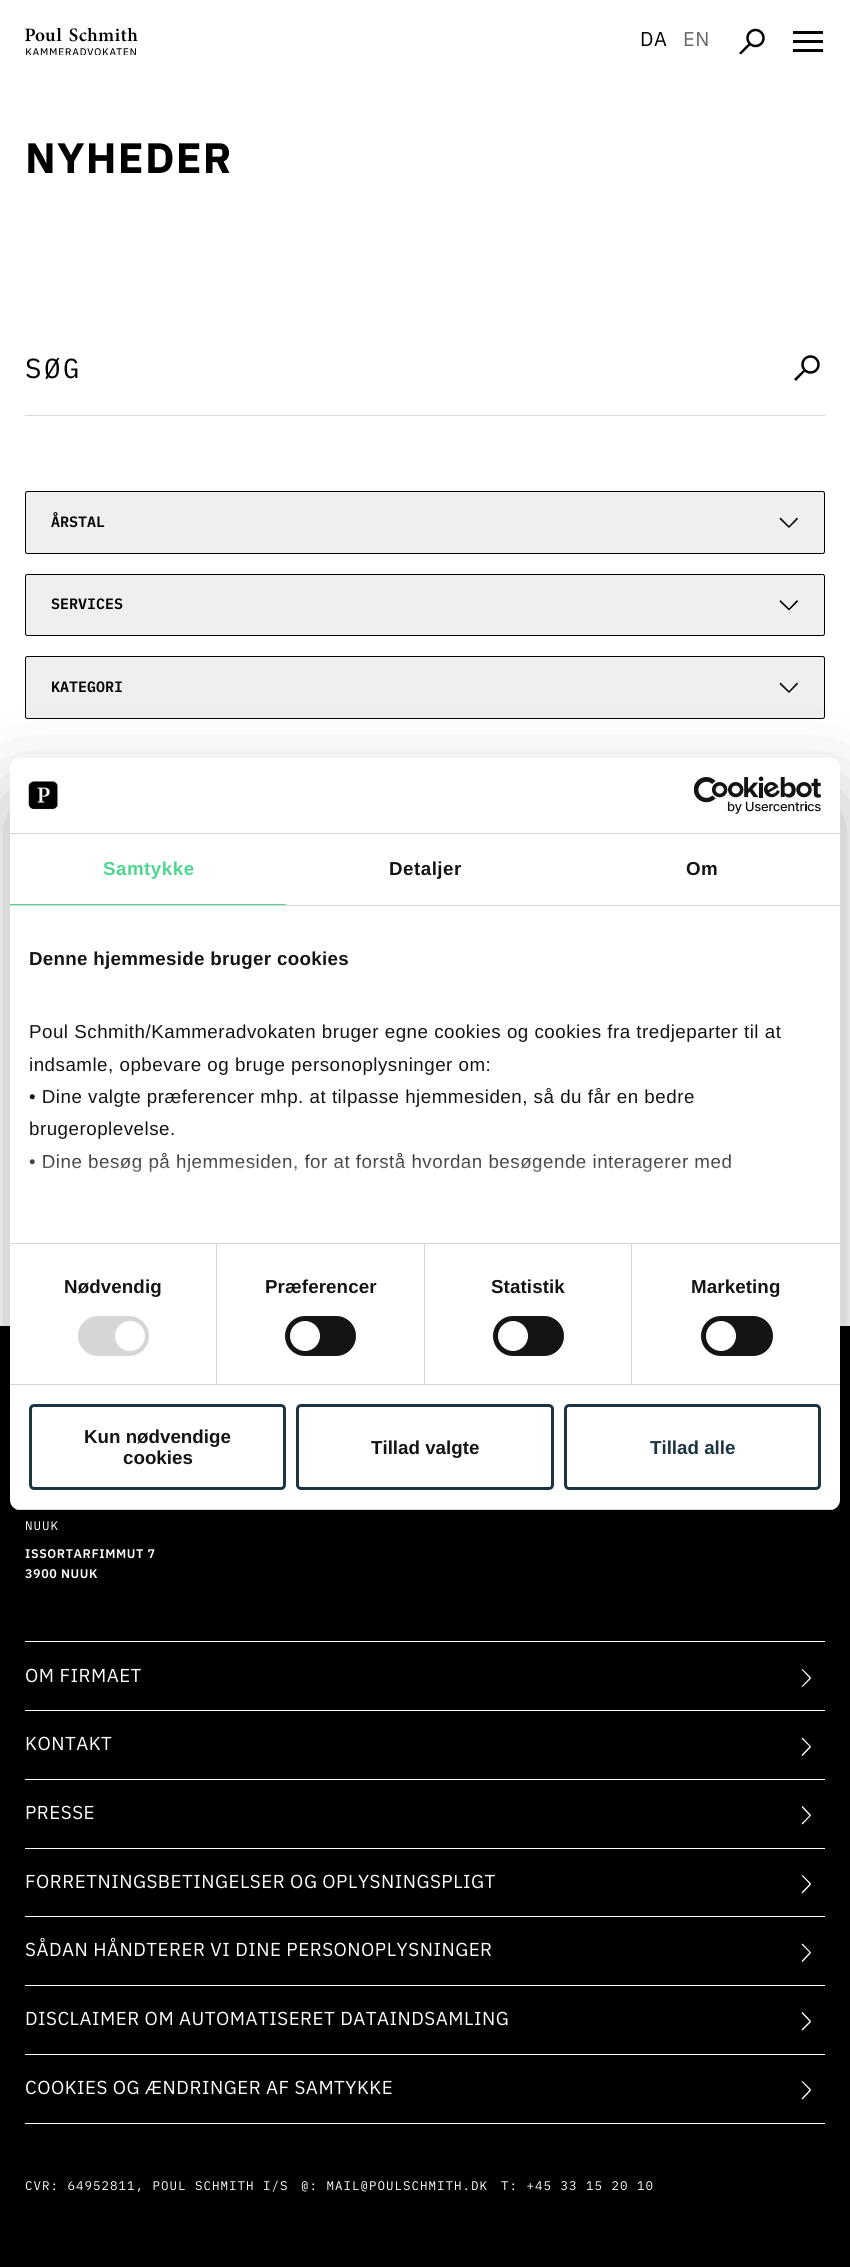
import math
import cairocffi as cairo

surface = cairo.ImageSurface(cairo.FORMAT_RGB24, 850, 2267)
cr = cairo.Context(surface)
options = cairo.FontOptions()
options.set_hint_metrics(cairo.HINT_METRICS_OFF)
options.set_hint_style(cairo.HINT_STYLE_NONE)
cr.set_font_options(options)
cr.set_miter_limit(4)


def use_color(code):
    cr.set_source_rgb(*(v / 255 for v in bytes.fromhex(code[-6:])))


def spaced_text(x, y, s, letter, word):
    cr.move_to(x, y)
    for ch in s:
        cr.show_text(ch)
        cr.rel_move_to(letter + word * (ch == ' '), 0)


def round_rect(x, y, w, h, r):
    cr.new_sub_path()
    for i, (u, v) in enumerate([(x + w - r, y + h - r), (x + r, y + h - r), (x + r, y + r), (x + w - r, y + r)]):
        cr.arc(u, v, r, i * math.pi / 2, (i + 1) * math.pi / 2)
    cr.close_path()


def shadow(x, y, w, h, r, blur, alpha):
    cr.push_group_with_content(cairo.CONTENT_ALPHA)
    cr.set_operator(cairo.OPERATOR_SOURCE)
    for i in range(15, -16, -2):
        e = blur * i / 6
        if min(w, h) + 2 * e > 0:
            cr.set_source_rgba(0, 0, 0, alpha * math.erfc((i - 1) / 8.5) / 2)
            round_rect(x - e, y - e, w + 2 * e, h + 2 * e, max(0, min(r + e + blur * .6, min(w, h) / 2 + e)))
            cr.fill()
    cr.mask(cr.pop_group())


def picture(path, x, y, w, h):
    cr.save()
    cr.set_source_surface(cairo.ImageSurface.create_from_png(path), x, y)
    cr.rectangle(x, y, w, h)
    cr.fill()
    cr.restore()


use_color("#ffffff")
cr.paint()
picture("img1.png", 25, 28, 113, 27)
cr.select_font_face("IBM Plex Sans")
cr.set_font_size(20)
use_color("#000000")
spaced_text(640, 46, "DA", 0.6, 0)
use_color("#666666")
spaced_text(683, 46, "EN", 0.6, 0)
cr.new_path()
cr.arc(755.5, 38, 8, 0, 2 * math.pi)
use_color("#000000")
cr.set_line_width(2.5)
cr.stroke()
cr.set_fill_rule(cairo.FILL_RULE_EVEN_ODD)
cr.new_path()
cr.move_to(749, 43)
cr.line_to(750.5, 45)
cr.line_to(741, 54.5)
cr.line_to(739, 53)
cr.close_path()
cr.fill()
cr.rectangle(793, 40, 30, 3)
cr.fill()
cr.rectangle(793, 31, 30, 3)
cr.fill()
cr.rectangle(793, 49, 30, 3)
cr.fill()
cr.select_font_face("IBM Plex Sans", cairo.FONT_SLANT_NORMAL, cairo.FONT_WEIGHT_BOLD)
cr.set_font_size(42.5)
spaced_text(25, 173, "NYHEDER", 1.25, 0)
use_color("#d8d8d8")
cr.rectangle(25, 415, 800, 1)
cr.fill()
cr.select_font_face("IBM Plex Mono")
cr.set_font_size(27.5)
use_color("#000000")
spaced_text(25, 378, "SØG", 2.5, 0)
cr.new_path()
cr.arc(810.5, 364.5, 8, 0, 2 * math.pi)
cr.stroke()
cr.new_path()
cr.move_to(804, 369.5)
cr.line_to(805.5, 371)
cr.line_to(796, 381)
cr.line_to(794, 379)
cr.close_path()
cr.fill()
use_color("#efefef")
round_rect(25, 491, 800, 63, 2.5)
cr.fill()
use_color("#000000")
cr.new_path()
cr.move_to(789, 526)
cr.line_to(780.5, 517.5)
cr.line_to(779.5, 519)
cr.line_to(789, 528)
cr.line_to(798, 519)
cr.line_to(797, 517.5)
cr.close_path()
cr.fill()
round_rect(25.5, 491.5, 799, 62, 2)
cr.set_line_width(1)
cr.stroke()
cr.select_font_face("IBM Plex Mono SemiBold")
cr.set_font_size(15)
cr.move_to(51, 527)
cr.show_text("ÅRSTAL")
use_color("#efefef")
round_rect(25, 574, 800, 62, 2.5)
cr.fill()
use_color("#000000")
cr.new_path()
cr.move_to(789, 608.5)
cr.line_to(780.5, 600)
cr.line_to(779.5, 601.5)
cr.line_to(789, 610.5)
cr.line_to(798, 601.5)
cr.line_to(797, 600)
cr.close_path()
cr.fill()
round_rect(25.5, 574.5, 799, 61, 2)
cr.stroke()
cr.move_to(51, 609)
cr.show_text("SERVICES")
use_color("#efefef")
round_rect(25, 656, 800, 63, 2.5)
cr.fill()
use_color("#000000")
cr.new_path()
cr.move_to(789, 691)
cr.line_to(780.5, 682.5)
cr.line_to(779.5, 684)
cr.line_to(789, 693)
cr.line_to(798, 684)
cr.line_to(797, 682.5)
cr.close_path()
cr.fill()
round_rect(25.5, 656.5, 799, 62, 2)
cr.stroke()
cr.move_to(51, 692)
cr.show_text("KATEGORI")
cr.rectangle(0, 1326, 850, 941)
cr.fill()
use_color("#ffffff")
cr.rectangle(25, 1641, 800, 1)
cr.fill()
cr.set_fill_rule(cairo.FILL_RULE_WINDING)
cr.new_path()
cr.move_to(802.5, 1669)
cr.line_to(811, 1677.5)
cr.line_to(810, 1678.5)
cr.line_to(801.5, 1669.5)
cr.close_path()
cr.fill()
cr.new_path()
cr.move_to(801.5, 1686.5)
cr.line_to(810, 1677.5)
cr.line_to(811, 1678.5)
cr.line_to(802.5, 1687)
cr.close_path()
cr.fill()
use_color("#000000")
shadow(10, 798, 830, 752, 10, 42.5, 0.3)
use_color("#ffffff")
round_rect(10, 758, 830, 752, 10)
cr.fill()
use_color("#d6d6d6")
cr.rectangle(10, 833, 830, 1)
cr.fill()
picture("img2.png", 28, 781, 30, 29)
picture("img3.png", 694, 776, 127, 38)
cr.rectangle(10, 905, 830, 1)
cr.fill()
use_color("#50d691")
cr.rectangle(10, 904, 276, 1)
cr.fill()
cr.select_font_face("Liberation Sans", cairo.FONT_SLANT_NORMAL, cairo.FONT_WEIGHT_BOLD)
cr.set_font_size(18.75)
spaced_text(103, 875, "Samtykke", 0.5, 0)
use_color("#141414")
spaced_text(389, 875, "Detaljer", 0.5, 0)
spaced_text(686, 875, "Om", 0.5, 0)
use_color("#d6d6d6")
cr.rectangle(10, 1243, 830, 1)
cr.fill()
use_color("#141414")
spaced_text(29, 965, "Denne hjemmeside bruger cookies", 0.3, 0)
cr.select_font_face("Liberation Sans")
spaced_text(29, 1038, "Poul Schmith/Kammeradvokaten bruger egne cookies og cookies fra tredjeparter til at", 0.5, 0)
spaced_text(29, 1071, "indsamle, opbevare og bruge personoplysninger om:", 0.5, 0)
spaced_text(29, 1103, "• Dine valgte præferencer mhp. at tilpasse hjemmesiden, så du får en bedre", 0.5, 0)
spaced_text(29, 1135, "brugeroplevelse.", 0.5, 0)
spaced_text(29, 1168, "• Dine besøg på hjemmesiden, for at forstå hvordan besøgende interagerer med", 0.5, 0)
gradient = cairo.LinearGradient(417, 1243, 417, 1149)
gradient.add_color_stop_rgba(0, 1, 1, 1, 1)
gradient.add_color_stop_rgba(0.5, 1, 1, 1, 0.8)
gradient.add_color_stop_rgba(1, 1, 1, 1, 0)
cr.set_source(gradient)
cr.rectangle(29, 1153, 702, 19)
cr.fill()
use_color("#d6d6d6")
cr.rectangle(10, 1384, 830, 1)
cr.fill()
cr.rectangle(216, 1244, 1, 140)
cr.fill()
cr.select_font_face("Liberation Sans", cairo.FONT_SLANT_NORMAL, cairo.FONT_WEIGHT_BOLD)
use_color("#141414")
spaced_text(64, 1293, "Nødvendig", 0.1, 0)
use_color("#d6d6d6")
round_rect(78, 1316, 71, 40, 20)
cr.fill()
use_color("#ffffff")
cr.arc(130, 1336, 15, 0, 2 * math.pi)
cr.fill()
use_color("#d6d6d6")
cr.rectangle(424, 1244, 1, 140)
cr.fill()
use_color("#141414")
spaced_text(265, 1293, "Præferencer", 0.1, 0)
round_rect(285, 1316, 71, 40, 20)
cr.fill()
use_color("#ffffff")
cr.arc(305, 1336, 15, 0, 2 * math.pi)
cr.fill()
use_color("#d6d6d6")
cr.rectangle(631, 1244, 1, 140)
cr.fill()
use_color("#141414")
spaced_text(491, 1293, "Statistik", 0.1, 0)
round_rect(493, 1316, 71, 40, 20)
cr.fill()
use_color("#ffffff")
cr.arc(513, 1336, 15, 0, 2 * math.pi)
cr.fill()
use_color("#141414")
spaced_text(691, 1293, "Marketing", 0.1, 0)
round_rect(701, 1316, 72, 40, 20)
cr.fill()
use_color("#ffffff")
cr.arc(721, 1336, 15, 0, 2 * math.pi)
cr.fill()
cr.save()
round_rect(10, 758, 830, 752, 10)
cr.clip()
use_color("#d6d6d6")
cr.rectangle(10, 1509, 830, 1)
cr.fill()
cr.restore()
round_rect(30.5, 1405.5, 254, 83, 3.5)
use_color("#1a3441")
cr.set_line_width(3)
cr.stroke()
use_color("#141414")
cr.move_to(84, 1443)
cr.show_text("Kun nødvendige")
cr.move_to(123, 1464)
cr.show_text("cookies")
round_rect(297.5, 1405.5, 255, 83, 3.5)
use_color("#1a3441")
cr.stroke()
use_color("#141414")
cr.move_to(371, 1454)
cr.show_text("Tillad valgte")
round_rect(565.5, 1405.5, 254, 83, 3.5)
use_color("#1a3441")
cr.stroke()
cr.move_to(650, 1454)
cr.show_text("Tillad alle")
cr.select_font_face("IBM Plex Mono")
cr.set_font_size(12.5)
use_color("#ffffff")
spaced_text(25, 1530, "NUUK", 1, 0)
cr.select_font_face("IBM Plex Sans SemiBold")
spaced_text(25, 1558, "ISSORTARFIMMUT 7", 0.6, 0)
spaced_text(25, 1578, "3900 NUUK", 0.6, 0)
cr.rectangle(25, 1710, 800, 1)
cr.fill()
cr.select_font_face("IBM Plex Sans")
cr.set_font_size(18.75)
spaced_text(25, 1682, "OM FIRMAET", 0.5, 0)
cr.rectangle(25, 1779, 800, 1)
cr.fill()
spaced_text(25, 1750, "KONTAKT", 0.5, 0)
cr.new_path()
cr.move_to(802.5, 1737.5)
cr.line_to(811, 1746.5)
cr.line_to(810, 1747)
cr.line_to(801.5, 1738.5)
cr.close_path()
cr.fill()
cr.new_path()
cr.move_to(801.5, 1755)
cr.line_to(810, 1746)
cr.line_to(811, 1747)
cr.line_to(802.5, 1756)
cr.close_path()
cr.fill()
cr.rectangle(25, 1848, 800, 1)
cr.fill()
spaced_text(25, 1819, "PRESSE", 0.5, 0)
cr.new_path()
cr.move_to(802.5, 1806)
cr.line_to(811, 1815)
cr.line_to(810, 1816)
cr.line_to(801.5, 1807)
cr.close_path()
cr.fill()
cr.new_path()
cr.move_to(801.5, 1823.5)
cr.line_to(810, 1815)
cr.line_to(811, 1815.5)
cr.line_to(802.5, 1824.5)
cr.close_path()
cr.fill()
cr.rectangle(25, 1916, 800, 1)
cr.fill()
spaced_text(25, 1888, "FORRETNINGSBETINGELSER OG OPLYSNINGSPLIGT", 0.5, 0)
cr.new_path()
cr.move_to(802.5, 1875)
cr.line_to(811, 1883.5)
cr.line_to(810, 1884.5)
cr.line_to(801.5, 1875.5)
cr.close_path()
cr.fill()
cr.new_path()
cr.move_to(801.5, 1892.5)
cr.line_to(810, 1883.5)
cr.line_to(811, 1884.5)
cr.line_to(802.5, 1893.5)
cr.close_path()
cr.fill()
cr.rectangle(25, 1985, 800, 1)
cr.fill()
spaced_text(25, 1956, "SÅDAN HÅNDTERER VI DINE PERSONOPLYSNINGER", 0.5, 0)
cr.new_path()
cr.move_to(802.5, 1943.5)
cr.line_to(811, 1952.5)
cr.line_to(810, 1953)
cr.line_to(801.5, 1944.5)
cr.close_path()
cr.fill()
cr.new_path()
cr.move_to(801.5, 1961)
cr.line_to(810, 1952)
cr.line_to(811, 1953)
cr.line_to(802.5, 1962)
cr.close_path()
cr.fill()
cr.rectangle(25, 2054, 800, 1)
cr.fill()
spaced_text(25, 2025, "DISCLAIMER OM AUTOMATISERET DATAINDSAMLING", 0.5, 0)
cr.new_path()
cr.move_to(802.5, 2012)
cr.line_to(811, 2021)
cr.line_to(810, 2022)
cr.line_to(801.5, 2013)
cr.close_path()
cr.fill()
cr.new_path()
cr.move_to(801.5, 2029.5)
cr.line_to(810, 2021)
cr.line_to(811, 2022)
cr.line_to(802.5, 2030.5)
cr.close_path()
cr.fill()
cr.rectangle(25, 2123, 800, 1)
cr.fill()
spaced_text(25, 2094, "COOKIES OG ÆNDRINGER AF SAMTYKKE", 0.5, 0)
cr.new_path()
cr.move_to(802.5, 2081)
cr.line_to(811, 2089.5)
cr.line_to(810, 2090.5)
cr.line_to(801.5, 2081.5)
cr.close_path()
cr.fill()
cr.new_path()
cr.move_to(801.5, 2098.5)
cr.line_to(810, 2089.5)
cr.line_to(811, 2090.5)
cr.line_to(802.5, 2099.5)
cr.close_path()
cr.fill()
cr.select_font_face("IBM Plex Mono")
cr.set_font_size(12.5)
spaced_text(25, 2190, "CVR: 64952811, POUL SCHMITH I/S", 1, 0)
spaced_text(301, 2190, "@: MAIL@POULSCHMITH.DK", 1, 0)
spaced_text(501, 2190, "T: +45 33 15 20 10", 1, 0)
surface.write_to_png("result.png")
